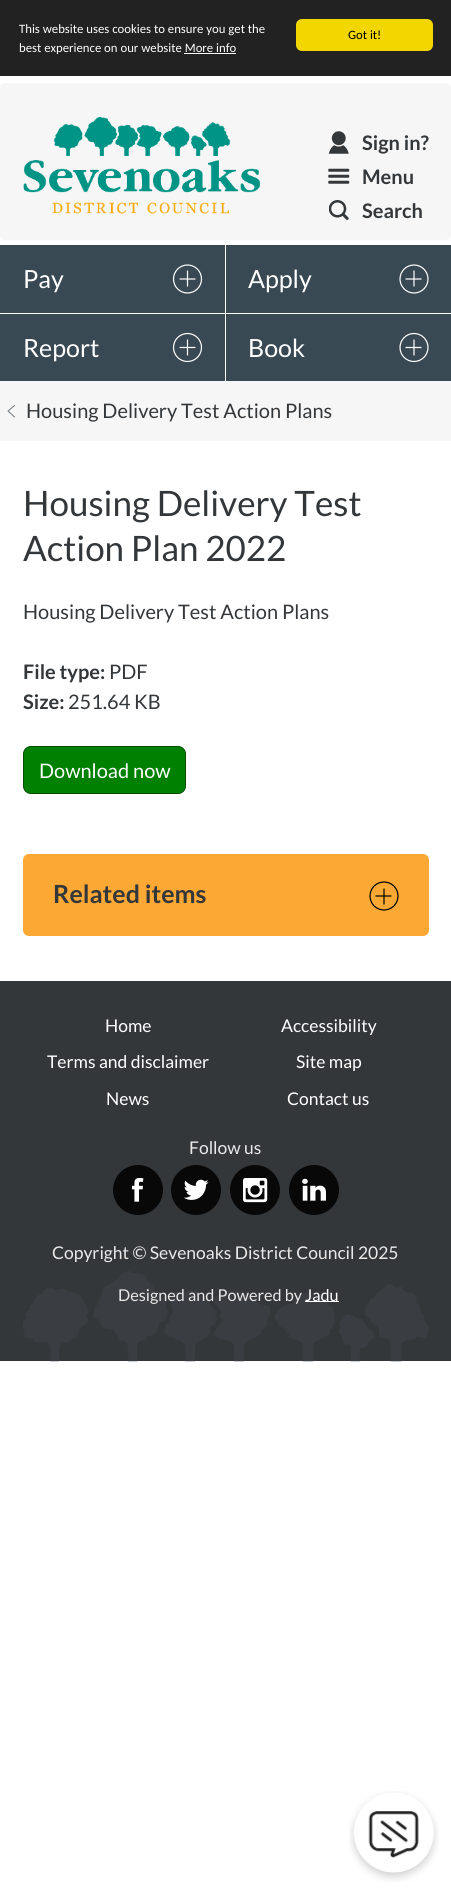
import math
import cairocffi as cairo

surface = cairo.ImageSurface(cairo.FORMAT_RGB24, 451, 1897)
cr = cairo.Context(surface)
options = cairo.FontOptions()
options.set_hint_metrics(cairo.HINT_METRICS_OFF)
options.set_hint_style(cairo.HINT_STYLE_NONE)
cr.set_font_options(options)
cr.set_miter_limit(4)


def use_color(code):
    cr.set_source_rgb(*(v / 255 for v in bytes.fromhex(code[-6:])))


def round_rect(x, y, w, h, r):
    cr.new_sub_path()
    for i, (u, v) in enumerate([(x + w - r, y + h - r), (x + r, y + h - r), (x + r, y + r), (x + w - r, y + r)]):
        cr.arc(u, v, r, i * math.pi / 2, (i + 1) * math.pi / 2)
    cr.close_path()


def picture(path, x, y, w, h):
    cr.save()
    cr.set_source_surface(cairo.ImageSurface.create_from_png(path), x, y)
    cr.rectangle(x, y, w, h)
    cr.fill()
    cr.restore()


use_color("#ffffff")
cr.paint()
use_color("#222222")
cr.rectangle(0, 0, 451, 76)
cr.fill()
cr.select_font_face("Carlito")
cr.set_font_size(12.75)
use_color("#ffffff")
cr.move_to(19, 33)
cr.show_text("This website uses cookies to ensure you get the")
cr.move_to(19, 52)
cr.show_text("best experience on our website More info")
cr.rectangle(184, 53, 52, 1)
cr.fill()
use_color("#f1d600")
round_rect(296, 19, 137, 32, 6)
cr.fill()
use_color("#000000")
cr.move_to(348, 39)
cr.show_text("Got it!")
use_color("#f6f6f6")
round_rect(0, 83, 451, 157, 6)
cr.fill()
picture("img1.png", 23, 116, 237, 98)
picture("img2.png", 328, 131, 21, 23)
cr.select_font_face("Lato", cairo.FONT_SLANT_NORMAL, cairo.FONT_WEIGHT_BOLD)
cr.set_font_size(20)
use_color("#34373a")
cr.move_to(362, 150)
cr.show_text("Sign in?")
picture("img3.png", 328, 168, 22, 16)
cr.move_to(362, 184)
cr.show_text("Menu")
picture("img4.png", 329, 200, 20, 20)
cr.move_to(362, 218)
cr.show_text("Search")
use_color("#394954")
cr.rectangle(0, 245, 225, 68)
cr.fill()
cr.select_font_face("Lato")
cr.set_font_size(25)
use_color("#ffffff")
cr.move_to(23, 288)
cr.show_text("Pay")
cr.new_path()
cr.arc(187.5, 279, 14, 0, 2 * math.pi)
cr.set_line_width(1.2)
cr.stroke()
cr.new_path()
cr.move_to(187.5, 271)
cr.line_to(187.5, 286)
cr.move_to(195, 279)
cr.line_to(180, 279)
cr.set_line_cap(cairo.LINE_CAP_ROUND)
cr.set_line_join(cairo.LINE_JOIN_ROUND)
cr.stroke()
use_color("#394954")
cr.rectangle(226, 245, 225, 68)
cr.fill()
use_color("#ffffff")
cr.move_to(248, 288)
cr.show_text("Apply")
cr.new_path()
cr.arc(414, 279, 14, 0, 2 * math.pi)
cr.set_line_cap(cairo.LINE_CAP_BUTT)
cr.set_line_join(cairo.LINE_JOIN_MITER)
cr.stroke()
cr.new_path()
cr.move_to(414, 271)
cr.line_to(414, 286)
cr.move_to(421, 279)
cr.line_to(406, 279)
cr.set_line_cap(cairo.LINE_CAP_ROUND)
cr.set_line_join(cairo.LINE_JOIN_ROUND)
cr.stroke()
use_color("#394954")
cr.rectangle(0, 314, 225, 67)
cr.fill()
use_color("#ffffff")
cr.move_to(23, 357)
cr.show_text("Report")
cr.new_path()
cr.arc(187.5, 347.5, 14, 0, 2 * math.pi)
cr.set_line_cap(cairo.LINE_CAP_BUTT)
cr.set_line_join(cairo.LINE_JOIN_MITER)
cr.stroke()
cr.new_path()
cr.move_to(187.5, 340)
cr.line_to(187.5, 355)
cr.move_to(195, 347.5)
cr.line_to(180, 347.5)
cr.set_line_cap(cairo.LINE_CAP_ROUND)
cr.set_line_join(cairo.LINE_JOIN_ROUND)
cr.stroke()
use_color("#394954")
cr.rectangle(226, 314, 225, 67)
cr.fill()
use_color("#ffffff")
cr.move_to(248, 357)
cr.show_text("Book")
cr.new_path()
cr.arc(414, 347.5, 14, 0, 2 * math.pi)
cr.set_line_cap(cairo.LINE_CAP_BUTT)
cr.set_line_join(cairo.LINE_JOIN_MITER)
cr.stroke()
cr.new_path()
cr.move_to(414, 340)
cr.line_to(414, 355)
cr.move_to(421, 347.5)
cr.line_to(406, 347.5)
cr.set_line_cap(cairo.LINE_CAP_ROUND)
cr.set_line_join(cairo.LINE_JOIN_ROUND)
cr.stroke()
use_color("#f6f6f6")
cr.rectangle(0, 381, 451, 60)
cr.fill()
cr.new_path()
cr.move_to(14.5, 405.5)
cr.line_to(8, 411)
cr.line_to(14.5, 417)
use_color("#70777d")
cr.set_line_width(1)
cr.stroke()
cr.set_font_size(20)
use_color("#34373a")
cr.move_to(26, 418)
cr.show_text("Housing Delivery Test Action Plans")
cr.set_font_size(35)
cr.move_to(23, 516)
cr.show_text("Housing Delivery Test")
cr.move_to(23, 561)
cr.show_text("Action Plan 2022")
cr.set_font_size(20)
cr.move_to(23, 619)
cr.show_text("Housing Delivery Test Action Plans")
cr.select_font_face("Lato", cairo.FONT_SLANT_NORMAL, cairo.FONT_WEIGHT_BOLD)
cr.move_to(23, 679)
cr.show_text("File type:")
cr.select_font_face("Lato")
cr.move_to(109, 679)
cr.show_text("PDF")
cr.select_font_face("Lato", cairo.FONT_SLANT_NORMAL, cairo.FONT_WEIGHT_BOLD)
cr.move_to(23, 709)
cr.show_text("Size:")
cr.select_font_face("Lato")
cr.move_to(68, 709)
cr.show_text("251.64 KB")
use_color("#008000")
round_rect(23.5, 746.5, 162, 47, 7.5)
cr.fill_preserve()
use_color("#004d00")
cr.set_line_cap(cairo.LINE_CAP_BUTT)
cr.set_line_join(cairo.LINE_JOIN_MITER)
cr.stroke()
use_color("#ffffff")
cr.move_to(39, 778)
cr.show_text("Download now")
use_color("#fba835")
round_rect(23, 854, 406, 82, 6)
cr.fill()
cr.select_font_face("Lato", cairo.FONT_SLANT_NORMAL, cairo.FONT_WEIGHT_BOLD)
cr.set_font_size(25)
use_color("#34373a")
cr.move_to(53, 903)
cr.show_text("Related items")
cr.new_path()
cr.arc(384, 896, 14, 0, 2 * math.pi)
use_color("#000000")
cr.set_line_width(1.2)
cr.stroke()
cr.new_path()
cr.move_to(384, 889)
cr.line_to(384, 904)
cr.move_to(391, 896)
cr.line_to(376, 896)
cr.set_line_cap(cairo.LINE_CAP_ROUND)
cr.set_line_join(cairo.LINE_JOIN_ROUND)
cr.stroke()
use_color("#34373a")
cr.rectangle(0, 981, 451, 380)
cr.fill()
picture("img5.png", 23, 1271, 406, 91)
cr.select_font_face("Lato")
cr.set_font_size(17.5)
use_color("#ffffff")
cr.move_to(105, 1032)
cr.show_text("Home")
cr.move_to(281, 1032)
cr.show_text("Accessibility")
cr.move_to(47, 1068)
cr.show_text("Terms and disclaimer")
cr.move_to(296, 1068)
cr.show_text("Site map")
cr.move_to(106, 1105)
cr.show_text("News")
cr.move_to(287, 1105)
cr.show_text("Contact us")
use_color("#e9e9e9")
cr.move_to(189, 1154)
cr.show_text("Follow us")
use_color("#080809")
cr.new_path()
cr.arc(138, 1190, 25, 0, 2 * math.pi)
cr.fill()
picture("img6.png", 131, 1178, 13, 24)
cr.arc(196, 1190, 25, 0, 2 * math.pi)
cr.fill()
picture("img7.png", 184, 1179, 25, 21)
cr.arc(255, 1190, 25, 0, 2 * math.pi)
cr.fill()
picture("img8.png", 243, 1178, 25, 25)
cr.arc(314, 1190, 25, 0, 2 * math.pi)
cr.fill()
picture("img9.png", 302, 1178, 24, 23)
use_color("#e9e9e9")
cr.move_to(52, 1259)
cr.show_text("Copyright © Sevenoaks District Council 2025")
cr.set_font_size(16.25)
cr.move_to(118, 1301)
cr.show_text("Designed and Powered by")
use_color("#ffffff")
cr.rectangle(305, 1301, 34, 1)
cr.fill()
cr.move_to(305, 1301)
cr.show_text("Jadu")
picture("img10.png", 349, 1791, 90, 91)
surface.write_to_png("result.png")
